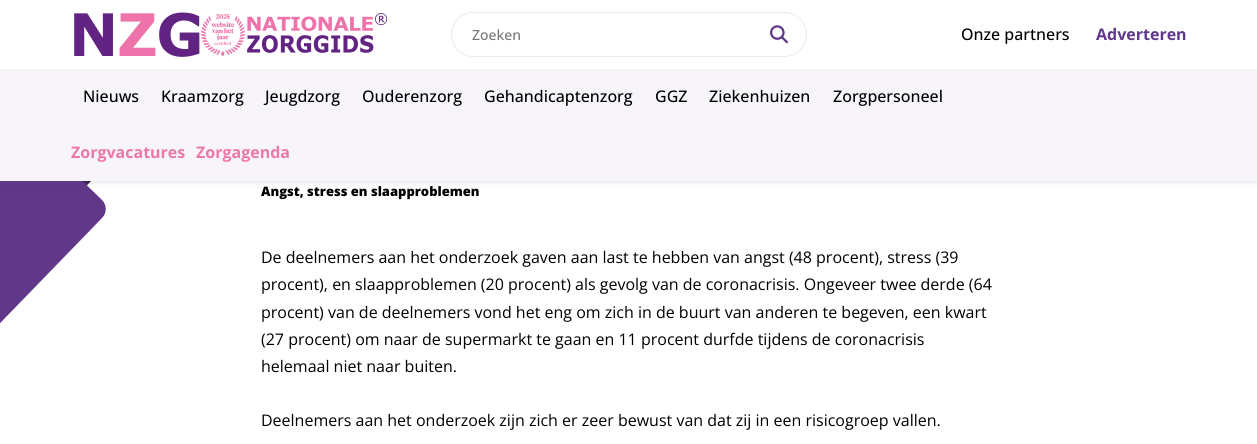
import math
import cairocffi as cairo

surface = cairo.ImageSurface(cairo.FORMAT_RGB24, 1257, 444)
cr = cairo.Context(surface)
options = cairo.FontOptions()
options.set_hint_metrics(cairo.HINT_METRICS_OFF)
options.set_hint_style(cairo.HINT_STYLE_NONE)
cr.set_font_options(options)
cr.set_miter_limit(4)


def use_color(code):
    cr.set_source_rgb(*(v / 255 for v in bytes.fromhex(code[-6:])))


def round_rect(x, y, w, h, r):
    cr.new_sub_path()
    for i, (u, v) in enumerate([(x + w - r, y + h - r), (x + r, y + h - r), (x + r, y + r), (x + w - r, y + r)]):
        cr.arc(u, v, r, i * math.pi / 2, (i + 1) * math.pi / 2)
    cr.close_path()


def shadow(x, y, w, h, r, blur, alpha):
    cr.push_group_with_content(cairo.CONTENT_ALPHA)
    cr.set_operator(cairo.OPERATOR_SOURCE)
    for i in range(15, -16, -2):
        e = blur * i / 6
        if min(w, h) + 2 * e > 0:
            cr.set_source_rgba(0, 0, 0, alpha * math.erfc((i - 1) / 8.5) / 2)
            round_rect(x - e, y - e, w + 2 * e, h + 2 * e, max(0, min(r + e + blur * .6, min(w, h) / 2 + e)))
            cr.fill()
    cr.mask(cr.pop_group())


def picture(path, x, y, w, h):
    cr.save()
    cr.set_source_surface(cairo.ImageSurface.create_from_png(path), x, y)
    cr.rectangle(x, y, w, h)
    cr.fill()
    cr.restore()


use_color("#ffffff")
cr.paint()
use_color("#3c1f59")
cr.set_fill_rule(cairo.FILL_RULE_EVEN_ODD)
cr.new_path()
cr.move_to(-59, 14)
cr.line_to(93, 161)
cr.curve_to(98, 166, 98, 174, 93, 179)
cr.line_to(-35, 312)
cr.curve_to(-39, 317, -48, 317, -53, 312)
cr.line_to(-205, 165)
cr.curve_to(-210, 160, -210, 152, -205, 147)
cr.line_to(-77, 15)
cr.curve_to(-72, 10, -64, 9, -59, 14)
cr.close_path()
cr.fill()
use_color("#603789")
cr.new_path()
cr.move_to(-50, 53)
cr.line_to(102, 200)
cr.curve_to(107, 205, 107, 213, 102, 218)
cr.line_to(-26, 350)
cr.curve_to(-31, 355, -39, 356, -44, 351)
cr.line_to(-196, 204)
cr.curve_to(-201, 199, -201, 191, -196, 186)
cr.line_to(-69, 53)
cr.curve_to(-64, 48, -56, 48, -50, 53)
cr.close_path()
cr.fill()
use_color("#3d3d3d")
shadow(0, 0, 1257, 181, 0, 3.5, 0.2)
use_color("#ffffff")
cr.rectangle(0, 0, 1257, 69)
cr.fill()
picture("img1.png", 74, 12, 313, 45)
round_rect(451.5, 12.5, 355, 44, 22)
use_color("#edeaef")
cr.set_line_width(1)
cr.stroke()
cr.select_font_face("Open Sans Medium")
cr.set_font_size(14)
use_color("#757575")
cr.move_to(472, 40)
cr.show_text("Zoeken")
picture("img2.png", 770, 25, 18, 19)
cr.set_font_size(16)
use_color("#000000")
cr.move_to(961, 40)
cr.show_text("Onze partners")
cr.select_font_face("Open Sans", cairo.FONT_SLANT_NORMAL, cairo.FONT_WEIGHT_BOLD)
use_color("#603789")
cr.move_to(1096, 40)
cr.show_text("Adverteren")
use_color("#f7f5f9")
cr.rectangle(0, 69, 1257, 112)
cr.fill()
cr.select_font_face("Open Sans Medium")
use_color("#000000")
cr.move_to(83, 102)
cr.show_text("Nieuws")
cr.move_to(161, 102)
cr.show_text("Kraamzorg")
cr.move_to(265, 102)
cr.show_text("Jeugdzorg")
cr.move_to(362, 102)
cr.show_text("Ouderenzorg")
cr.move_to(484, 102)
cr.show_text("Gehandicaptenzorg")
cr.move_to(655, 102)
cr.show_text("GGZ")
cr.move_to(709, 102)
cr.show_text("Ziekenhuizen")
cr.move_to(833, 102)
cr.show_text("Zorgpersoneel")
cr.select_font_face("Open Sans", cairo.FONT_SLANT_NORMAL, cairo.FONT_WEIGHT_BOLD)
use_color("#ed77ab")
cr.move_to(71, 158)
cr.show_text("Zorgvacatures")
cr.move_to(196, 158)
cr.show_text("Zorgagenda")
cr.select_font_face("Open Sans ExtraBold")
cr.set_font_size(13)
use_color("#000000")
cr.move_to(261, 196)
cr.show_text("Angst, stress en slaapproblemen")
cr.select_font_face("Open Sans")
cr.set_font_size(16)
cr.move_to(261, 263)
cr.show_text("De deelnemers aan het onderzoek gaven aan last te hebben van angst (48 procent), stress (39")
cr.move_to(261, 290)
cr.show_text("procent), en slaapproblemen (20 procent) als gevolg van de coronacrisis. Ongeveer twee derde (64")
cr.move_to(261, 318)
cr.show_text("procent) van de deelnemers vond het eng om zich in de buurt van anderen te begeven, een kwart")
cr.move_to(261, 345)
cr.show_text("(27 procent) om naar de supermarkt te gaan en 11 procent durfde tijdens de coronacrisis")
cr.move_to(261, 372)
cr.show_text("helemaal niet naar buiten.")
cr.move_to(261, 426)
cr.show_text("Deelnemers aan het onderzoek zijn zich er zeer bewust van dat zij in een risicogroep vallen.")
surface.write_to_png("result.png")
